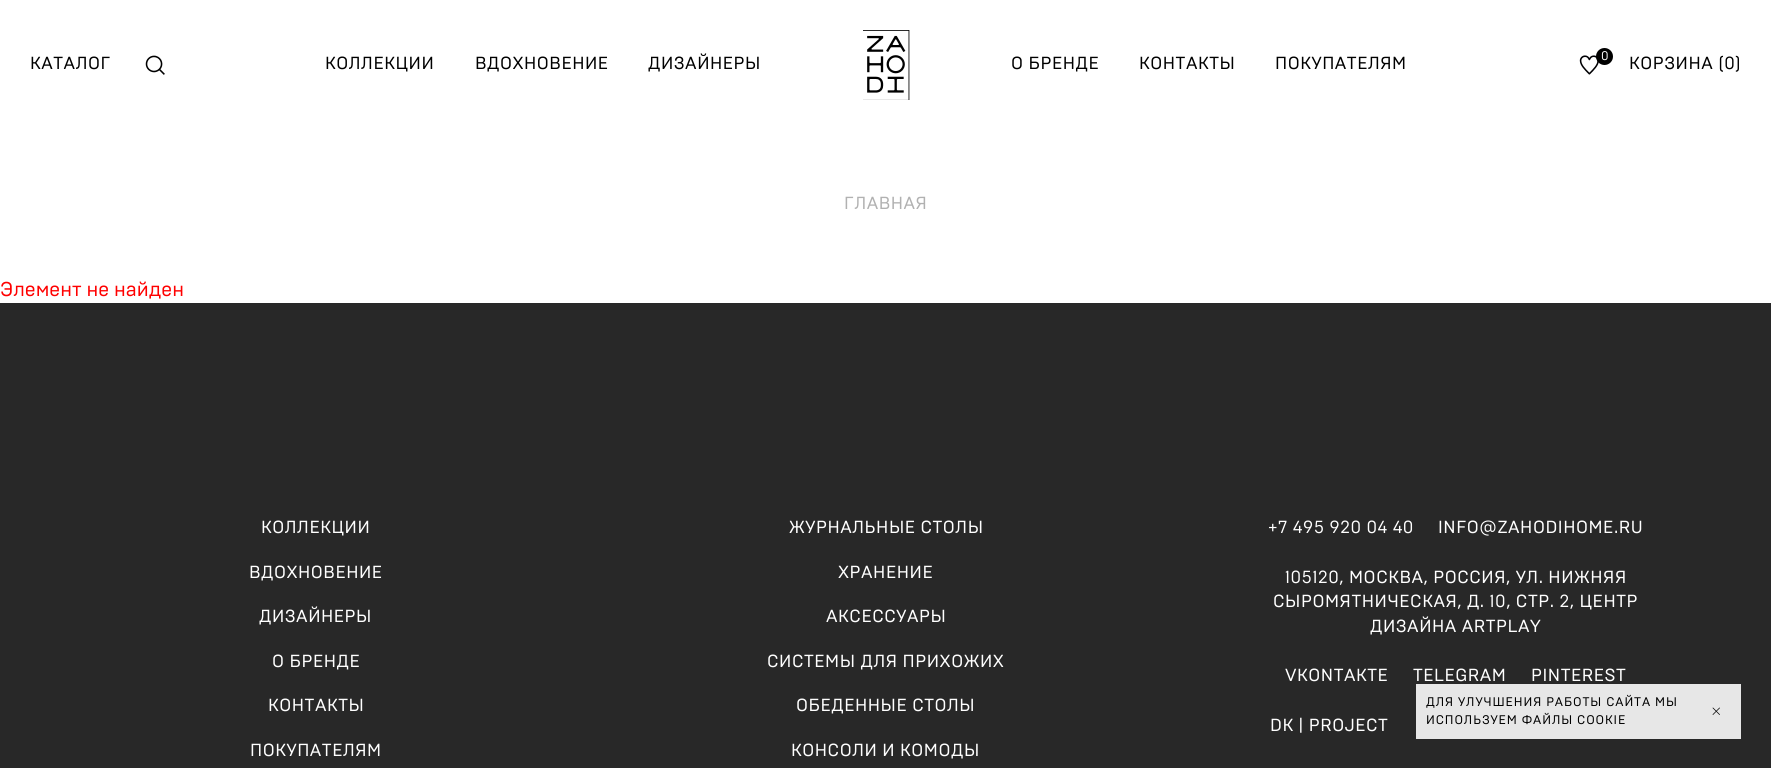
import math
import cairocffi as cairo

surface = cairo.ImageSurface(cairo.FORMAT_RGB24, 1771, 768)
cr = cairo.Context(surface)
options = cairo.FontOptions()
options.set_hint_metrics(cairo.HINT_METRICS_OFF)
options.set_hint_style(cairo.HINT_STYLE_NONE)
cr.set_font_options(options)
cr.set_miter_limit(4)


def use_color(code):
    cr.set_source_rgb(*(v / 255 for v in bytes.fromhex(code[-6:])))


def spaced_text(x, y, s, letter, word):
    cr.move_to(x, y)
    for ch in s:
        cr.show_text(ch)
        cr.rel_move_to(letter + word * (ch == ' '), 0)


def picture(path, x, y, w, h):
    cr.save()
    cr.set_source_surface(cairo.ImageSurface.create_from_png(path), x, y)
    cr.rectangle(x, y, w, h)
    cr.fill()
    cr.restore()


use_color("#ffffff")
cr.paint()
cr.select_font_face("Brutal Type")
cr.set_font_size(17.5)
use_color("#000000")
spaced_text(30, 69, "КАТАЛОГ", 0.55, 0)
picture("img1.png", 145, 55, 20, 20)
spaced_text(325, 69, "КОЛЛЕКЦИИ", 0.55, 0)
spaced_text(475, 69, "ВДОХНОВЕНИЕ", 0.55, 0)
spaced_text(648, 69, "ДИЗАЙНЕРЫ", 0.55, 0)
picture("img2.png", 863, 30, 47, 70)
spaced_text(1011, 69, "О БРЕНДЕ", 0.55, 0)
spaced_text(1139, 69, "КОНТАКТЫ", 0.55, 0)
spaced_text(1275, 69, "ПОКУПАТЕЛЯМ", 0.55, 0)
picture("img3.png", 1579, 55, 20, 20)
cr.arc(1604.5, 56.5, 8.5, 0, 2 * math.pi)
cr.fill()
cr.set_font_size(12.5)
use_color("#ffffff")
cr.move_to(1601, 60)
cr.show_text("0")
cr.set_font_size(17.5)
use_color("#000000")
spaced_text(1629, 69, "КОРЗИНА (0)", 0.55, 0)
use_color("#b1b1b1")
spaced_text(844, 209, "ГЛАВНАЯ", 0.55, 0)
cr.set_font_size(20)
use_color("#ff0000")
cr.move_to(0, 296)
cr.show_text("Элемент не найден")
use_color("#282828")
cr.rectangle(0, 303, 1771, 465)
cr.fill()
use_color("#e7e7e7")
cr.rectangle(1416, 684, 325, 55)
cr.fill()
cr.set_font_size(12.5)
use_color("#000000")
spaced_text(1426, 706, "ДЛЯ УЛУЧШЕНИЯ РАБОТЫ САЙТА МЫ", 0.9, 0)
spaced_text(1426, 724, "ИСПОЛЬЗУЕМ ФАЙЛЫ COOKIE", 0.9, 0)
cr.new_path()
cr.move_to(1713, 707.5)
cr.line_to(1720, 714.5)
cr.line_to(1719.5, 715)
cr.line_to(1712.5, 708)
cr.close_path()
cr.fill()
cr.new_path()
cr.move_to(1712.5, 714.5)
cr.line_to(1719.5, 707.5)
cr.line_to(1720, 708)
cr.line_to(1713, 715)
cr.close_path()
cr.fill()
cr.set_font_size(17.5)
use_color("#ffffff")
spaced_text(261, 533, "КОЛЛЕКЦИИ", 0.55, 0)
spaced_text(249, 578, "ВДОХНОВЕНИЕ", 0.55, 0)
spaced_text(259, 622, "ДИЗАЙНЕРЫ", 0.55, 0)
spaced_text(272, 667, "О БРЕНДЕ", 0.55, 0)
spaced_text(268, 711, "КОНТАКТЫ", 0.55, 0)
spaced_text(250, 756, "ПОКУПАТЕЛЯМ", 0.55, 0)
spaced_text(789, 533, "ЖУРНАЛЬНЫЕ СТОЛЫ", 0.55, 0)
spaced_text(838, 578, "ХРАНЕНИЕ", 0.55, 0)
spaced_text(826, 622, "АКСЕССУАРЫ", 0.55, 0)
spaced_text(767, 667, "СИСТЕМЫ ДЛЯ ПРИХОЖИХ", 0.55, 0)
spaced_text(796, 711, "ОБЕДЕННЫЕ СТОЛЫ", 0.55, 0)
spaced_text(791, 756, "КОНСОЛИ И КОМОДЫ", 0.55, 0)
spaced_text(1268, 533, "+7 495 920 04 40", 0.55, 0)
spaced_text(1438, 533, "INFO@ZAHODIHOME.RU", 0.55, 0)
spaced_text(1285, 583, "105120, МОСКВА, РОССИЯ, УЛ. НИЖНЯЯ", 0.55, 0)
spaced_text(1273, 607, "СЫРОМЯТНИЧЕСКАЯ, Д. 10, СТР. 2, ЦЕНТР", 0.55, 0)
spaced_text(1370, 632, "ДИЗАЙНА ARTPLAY", 0.55, 0)
spaced_text(1285, 681, "VKONTAKTE", 0.55, 0)
spaced_text(1413, 681, "TELEGRAM", 0.55, 0)
spaced_text(1531, 681, "PINTEREST", 0.55, 0)
spaced_text(1270, 731, "DK | PROJECT", 0.55, 0)
surface.write_to_png("result.png")
